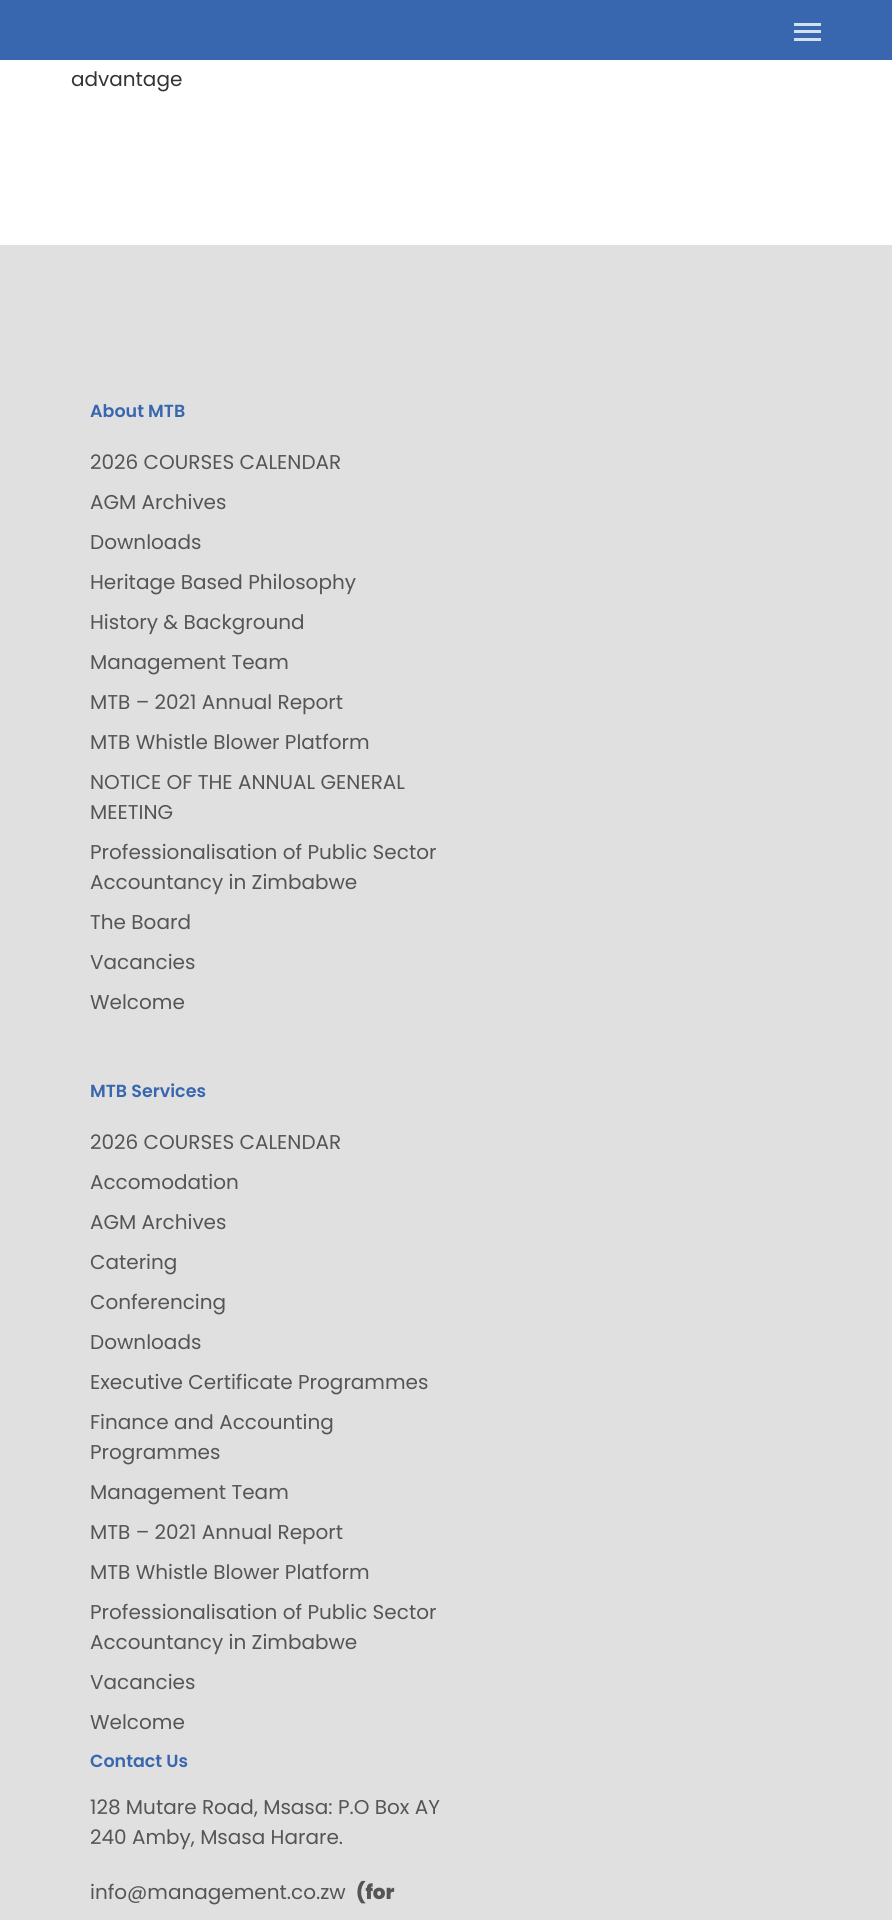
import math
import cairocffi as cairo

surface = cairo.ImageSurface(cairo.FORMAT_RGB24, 892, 1920)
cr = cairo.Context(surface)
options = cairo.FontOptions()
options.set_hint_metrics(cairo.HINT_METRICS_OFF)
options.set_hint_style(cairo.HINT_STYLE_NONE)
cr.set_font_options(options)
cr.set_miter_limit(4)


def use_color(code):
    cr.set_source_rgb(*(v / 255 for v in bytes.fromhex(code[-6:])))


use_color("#ffffff")
cr.paint()
use_color("#3867af")
cr.rectangle(0, 0, 892, 60)
cr.fill()
use_color("#d2e1f2")
cr.rectangle(794, 23, 27, 3)
cr.fill()
cr.rectangle(794, 38, 27, 3)
cr.fill()
cr.rectangle(794, 30, 27, 3)
cr.fill()
cr.select_font_face("Poppins")
cr.set_font_size(20)
use_color("#333333")
cr.move_to(71, 86)
cr.show_text("advantage")
use_color("#e0e0e0")
cr.rectangle(0, 245, 892, 1675)
cr.fill()
cr.select_font_face("Poppins SemiBold")
cr.set_font_size(17.5)
use_color("#3867af")
cr.move_to(90, 417)
cr.show_text("About MTB")
cr.select_font_face("Poppins")
cr.set_font_size(20)
use_color("#555555")
cr.move_to(90, 469)
cr.show_text("2026 COURSES CALENDAR")
cr.move_to(90, 509)
cr.show_text("AGM Archives")
cr.move_to(90, 549)
cr.show_text("Downloads")
cr.move_to(90, 589)
cr.show_text("Heritage Based Philosophy")
cr.move_to(90, 629)
cr.show_text("History & Background")
cr.move_to(90, 669)
cr.show_text("Management Team")
cr.move_to(90, 709)
cr.show_text("MTB – 2021 Annual Report")
cr.move_to(90, 749)
cr.show_text("MTB Whistle Blower Platform")
cr.move_to(90, 789)
cr.show_text("NOTICE OF THE ANNUAL GENERAL")
cr.move_to(90, 819)
cr.show_text("MEETING")
cr.move_to(90, 859)
cr.show_text("Professionalisation of Public Sector")
cr.move_to(90, 889)
cr.show_text("Accountancy in Zimbabwe")
cr.move_to(90, 929)
cr.show_text("The Board")
cr.move_to(90, 969)
cr.show_text("Vacancies")
cr.move_to(90, 1009)
cr.show_text("Welcome")
cr.select_font_face("Poppins SemiBold")
cr.set_font_size(17.5)
use_color("#3867af")
cr.move_to(90, 1097)
cr.show_text("MTB Services")
cr.select_font_face("Poppins")
cr.set_font_size(20)
use_color("#555555")
cr.move_to(90, 1149)
cr.show_text("2026 COURSES CALENDAR")
cr.move_to(90, 1189)
cr.show_text("Accomodation")
cr.move_to(90, 1229)
cr.show_text("AGM Archives")
cr.move_to(90, 1269)
cr.show_text("Catering")
cr.move_to(90, 1309)
cr.show_text("Conferencing")
cr.move_to(90, 1349)
cr.show_text("Downloads")
cr.move_to(90, 1389)
cr.show_text("Executive Certificate Programmes")
cr.move_to(90, 1429)
cr.show_text("Finance and Accounting")
cr.move_to(90, 1459)
cr.show_text("Programmes")
cr.move_to(90, 1499)
cr.show_text("Management Team")
cr.move_to(90, 1539)
cr.show_text("MTB – 2021 Annual Report")
cr.move_to(90, 1579)
cr.show_text("MTB Whistle Blower Platform")
cr.move_to(90, 1619)
cr.show_text("Professionalisation of Public Sector")
cr.move_to(90, 1649)
cr.show_text("Accountancy in Zimbabwe")
cr.move_to(90, 1689)
cr.show_text("Vacancies")
cr.move_to(90, 1729)
cr.show_text("Welcome")
cr.select_font_face("Poppins SemiBold")
cr.set_font_size(17.5)
use_color("#3867af")
cr.move_to(90, 1767)
cr.show_text("Contact Us")
cr.select_font_face("Poppins")
cr.set_font_size(20)
use_color("#555555")
cr.move_to(90, 1814)
cr.show_text("128 Mutare Road, Msasa: P.O Box AY")
cr.move_to(90, 1844)
cr.show_text("240 Amby, Msasa Harare.")
cr.move_to(90, 1899)
cr.show_text("info@management.co.zw")
cr.select_font_face("Poppins ExtraBold")
cr.move_to(356, 1899)
cr.show_text("(for")
surface.write_to_png("result.png")
